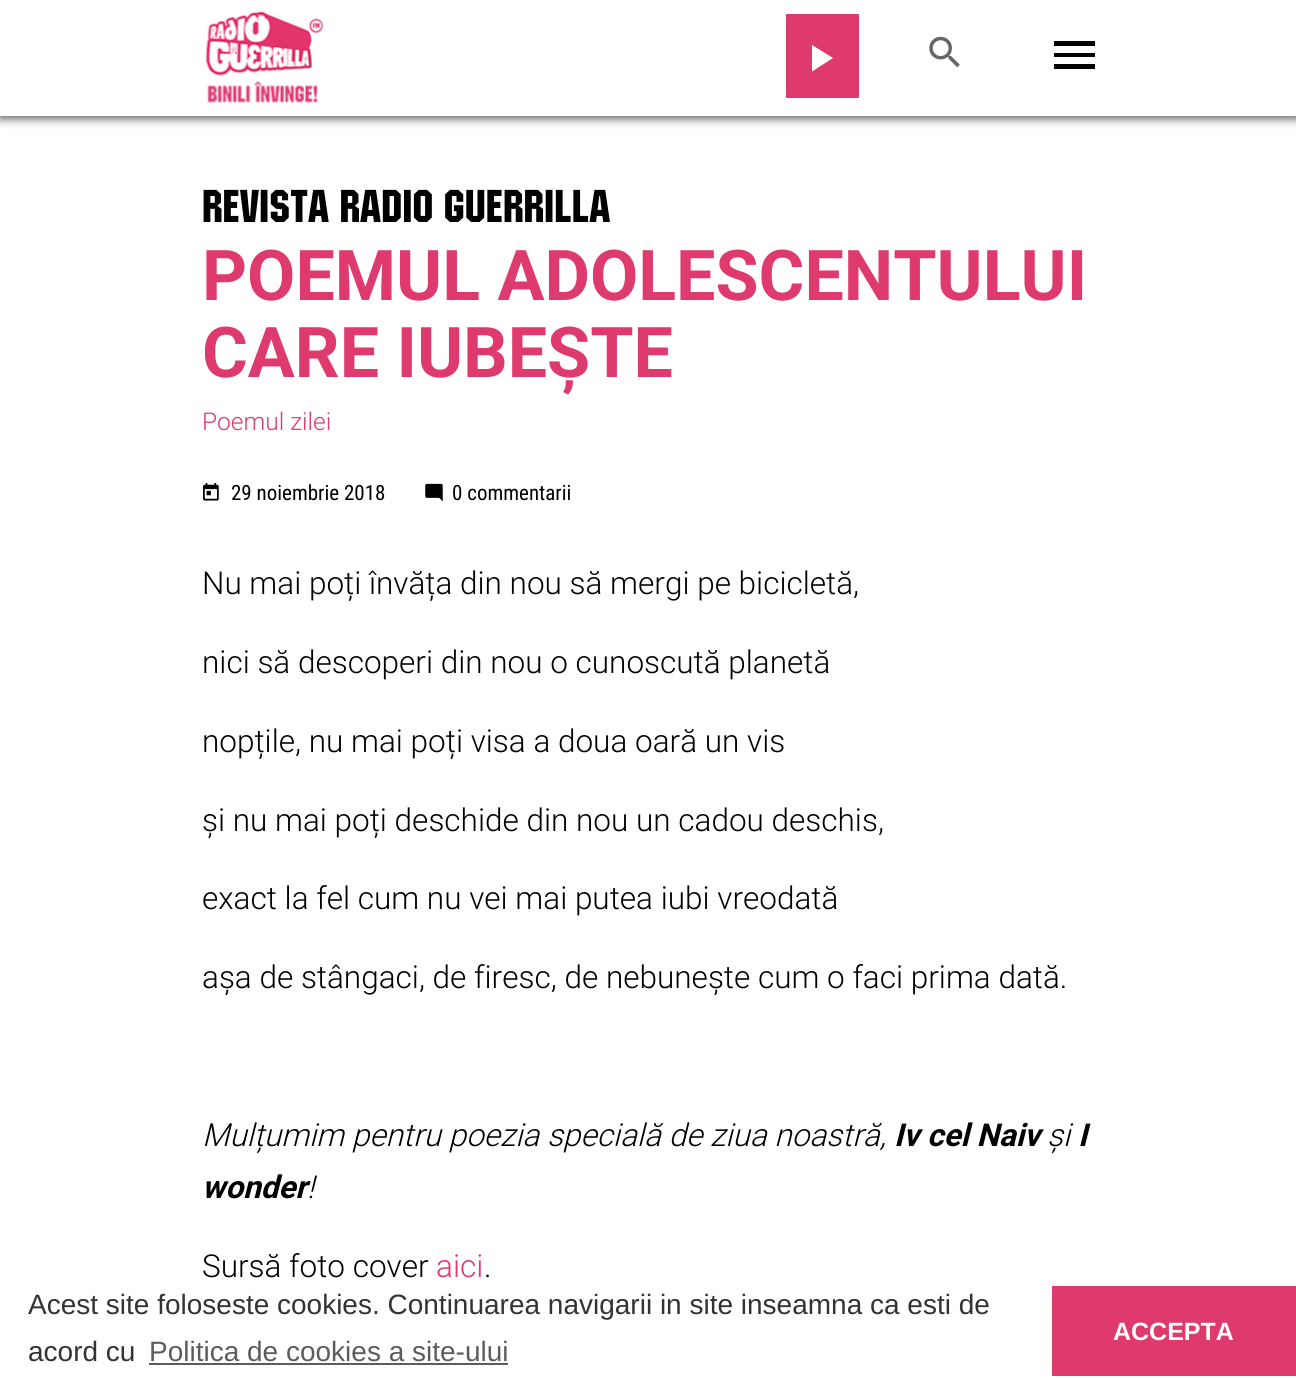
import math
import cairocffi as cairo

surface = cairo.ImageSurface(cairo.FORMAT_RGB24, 1296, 1378)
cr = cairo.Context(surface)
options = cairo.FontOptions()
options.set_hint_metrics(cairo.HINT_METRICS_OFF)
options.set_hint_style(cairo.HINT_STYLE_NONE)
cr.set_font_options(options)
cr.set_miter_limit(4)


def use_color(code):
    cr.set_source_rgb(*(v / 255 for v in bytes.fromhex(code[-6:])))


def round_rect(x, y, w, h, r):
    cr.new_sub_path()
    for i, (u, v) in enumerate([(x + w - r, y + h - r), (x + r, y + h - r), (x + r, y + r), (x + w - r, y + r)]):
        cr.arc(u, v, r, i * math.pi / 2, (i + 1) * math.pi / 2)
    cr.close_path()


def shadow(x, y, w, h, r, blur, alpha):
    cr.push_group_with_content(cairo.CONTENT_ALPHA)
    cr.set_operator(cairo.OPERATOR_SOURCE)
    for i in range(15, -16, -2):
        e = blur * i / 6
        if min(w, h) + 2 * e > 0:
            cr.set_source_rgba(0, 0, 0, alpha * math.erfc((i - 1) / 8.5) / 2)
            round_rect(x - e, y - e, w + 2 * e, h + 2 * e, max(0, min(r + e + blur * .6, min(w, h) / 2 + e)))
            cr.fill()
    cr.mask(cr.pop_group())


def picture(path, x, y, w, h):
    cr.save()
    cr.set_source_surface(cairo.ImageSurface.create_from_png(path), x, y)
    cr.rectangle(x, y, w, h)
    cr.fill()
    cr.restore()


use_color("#ffffff")
cr.paint()
use_color("#666666")
shadow(0, 4, 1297, 115, 0, 4.5, 1)
use_color("#ffffff")
cr.rectangle(0, 0, 1296, 116)
cr.fill()
picture("img1.png", 205, 11, 119, 92)
use_color("#de3a6d")
cr.rectangle(786, 14, 73, 84)
cr.fill()
use_color("#ffffff")
cr.new_path()
cr.move_to(812, 45)
cr.line_to(833, 58)
cr.line_to(812, 71.5)
cr.close_path()
cr.fill()
picture("img2.png", 929, 36, 31, 32)
use_color("#000000")
cr.new_path()
cr.move_to(1054, 69)
cr.line_to(1054, 64)
cr.line_to(1095, 64)
cr.line_to(1095, 69)
cr.close_path()
cr.move_to(1054, 57)
cr.line_to(1054, 53)
cr.line_to(1095, 53)
cr.line_to(1095, 57)
cr.close_path()
cr.move_to(1054, 41)
cr.line_to(1095, 41)
cr.line_to(1095, 46)
cr.line_to(1054, 46)
cr.close_path()
cr.fill()
cr.select_font_face("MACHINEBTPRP")
cr.set_font_size(45.5)
cr.move_to(202, 222)
cr.show_text("REVISTA RADIO GUERRILLA")
cr.select_font_face("Roboto", cairo.FONT_SLANT_NORMAL, cairo.FONT_WEIGHT_BOLD)
cr.set_font_size(70)
use_color("#de3a6d")
cr.move_to(202, 300)
cr.show_text("POEMUL ADOLESCENTULUI")
cr.move_to(202, 377)
cr.show_text("CARE IUBEȘTE")
cr.select_font_face("Roboto Light")
cr.set_font_size(24.5)
cr.move_to(202, 430)
cr.show_text("Poemul zilei")
picture("img3.png", 203, 483, 16, 18)
cr.select_font_face("Roboto Condensed")
cr.set_font_size(21)
use_color("#000000")
cr.move_to(231, 500)
cr.show_text("29 noiembrie 2018")
picture("img4.png", 425, 483, 18, 19)
cr.move_to(452, 500)
cr.show_text("0 commentarii")
cr.select_font_face("Roboto Light")
cr.set_font_size(31.5)
cr.move_to(202, 594)
cr.show_text("Nu mai poți învăța din nou să mergi pe bicicletă,")
cr.move_to(202, 673)
cr.show_text("nici să descoperi din nou o cunoscută planetă")
cr.move_to(202, 752)
cr.show_text("nopțile, nu mai poți visa a doua oară un vis")
cr.move_to(202, 831)
cr.show_text("și nu mai poți deschide din nou un cadou deschis,")
cr.move_to(202, 909)
cr.show_text("exact la fel cum nu vei mai putea iubi vreodată")
cr.move_to(202, 988)
cr.show_text("așa de stângaci, de firesc, de nebunește cum o faci prima dată.")
cr.select_font_face("Roboto Light", cairo.FONT_SLANT_ITALIC)
cr.move_to(202, 1146)
cr.show_text("Mulțumim pentru poezia specială de ziua noastră,")
cr.select_font_face("Roboto", cairo.FONT_SLANT_ITALIC, cairo.FONT_WEIGHT_BOLD)
cr.move_to(894, 1146)
cr.show_text("Iv cel Naiv")
cr.select_font_face("Roboto Light", cairo.FONT_SLANT_ITALIC)
cr.move_to(1047, 1146)
cr.show_text("și")
cr.select_font_face("Roboto", cairo.FONT_SLANT_ITALIC, cairo.FONT_WEIGHT_BOLD)
cr.move_to(1078, 1146)
cr.show_text("I")
cr.move_to(202, 1198)
cr.show_text("wonder")
cr.select_font_face("Roboto Light", cairo.FONT_SLANT_ITALIC)
cr.move_to(307, 1198)
cr.show_text("!")
cr.select_font_face("Roboto Light")
cr.move_to(202, 1277)
cr.show_text("Sursă foto cover")
use_color("#de3a6d")
cr.move_to(436, 1277)
cr.show_text("aici")
use_color("#000000")
cr.move_to(484, 1277)
cr.show_text(".")
cr.select_font_face("Liberation Sans")
cr.set_font_size(28)
use_color("#333333")
cr.move_to(28, 1314)
cr.show_text("Acest site foloseste cookies. Continuarea navigarii in site inseamna ca esti de")
cr.move_to(28, 1361)
cr.show_text("acord cu")
use_color("#5c5c5c")
cr.move_to(149, 1361)
cr.show_text("Politica de cookies a site-ului")
cr.rectangle(149, 1363, 359, 2)
cr.fill()
use_color("#de3a6d")
cr.rectangle(1052, 1286, 244, 90)
cr.fill()
cr.select_font_face("Liberation Sans", cairo.FONT_SLANT_NORMAL, cairo.FONT_WEIGHT_BOLD)
cr.set_font_size(25)
use_color("#ffffff")
cr.move_to(1113, 1340)
cr.show_text("ACCEPTA")
surface.write_to_png("result.png")
